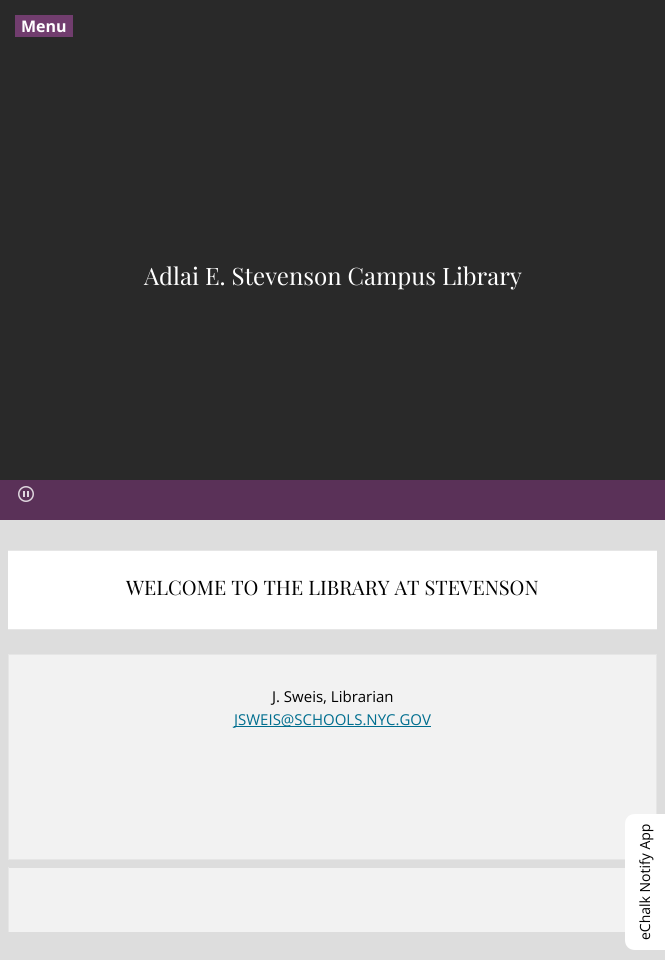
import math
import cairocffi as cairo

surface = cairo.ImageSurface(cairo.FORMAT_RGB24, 665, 960)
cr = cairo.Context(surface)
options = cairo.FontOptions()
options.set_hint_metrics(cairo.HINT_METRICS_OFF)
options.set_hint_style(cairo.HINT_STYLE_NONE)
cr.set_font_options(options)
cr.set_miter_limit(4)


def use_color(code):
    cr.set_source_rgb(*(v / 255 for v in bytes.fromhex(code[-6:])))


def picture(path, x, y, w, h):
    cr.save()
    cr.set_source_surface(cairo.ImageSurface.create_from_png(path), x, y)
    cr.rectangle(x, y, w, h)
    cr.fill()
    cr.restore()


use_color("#5a3158")
cr.paint()
use_color("#292929")
cr.rectangle(0, 0, 665, 480)
cr.fill()
use_color("#713d6e")
cr.rectangle(15, 15, 58, 22)
cr.fill()
cr.select_font_face("Open Sans", cairo.FONT_SLANT_NORMAL, cairo.FONT_WEIGHT_BOLD)
cr.set_font_size(16)
use_color("#ffffff")
cr.move_to(21, 32)
cr.show_text("Menu")
cr.select_font_face("Playfair Display")
cr.set_font_size(24)
cr.move_to(144, 285)
cr.show_text("Adlai E. Stevenson Campus Library")
picture("img1.png", 18, 486, 16, 16)
use_color("#dddddd")
cr.rectangle(8, 520, 649, 440)
cr.fill()
use_color("#ffffff")
cr.rectangle(8, 551, 649, 78)
cr.fill()
cr.rectangle(0.5, 550.5, 664, 79)
use_color("#e6e6e6")
cr.set_line_width(1)
cr.stroke()
use_color("#dddddd")
cr.rectangle(0, 520, 8, 440)
cr.fill()
cr.set_font_size(20)
use_color("#000000")
cr.move_to(126, 595)
cr.show_text("WELCOME TO THE LIBRARY AT STEVENSON")
use_color("#f2f2f2")
cr.rectangle(9, 655, 647, 204)
cr.fill()
use_color("#e6e6e6")
cr.rectangle(9, 654, 647, 1)
cr.fill()
cr.rectangle(9, 859, 616, 1)
cr.fill()
cr.rectangle(8, 654, 1, 206)
cr.fill()
cr.select_font_face("Open Sans")
cr.set_font_size(15)
use_color("#000000")
cr.move_to(272, 702)
cr.show_text("J. Sweis, Librarian")
use_color("#006e8f")
cr.rectangle(234, 726, 197, 1)
cr.fill()
cr.move_to(234, 725)
cr.show_text("JSWEIS@SCHOOLS.NYC.GOV")
use_color("#e6e6e6")
cr.rectangle(656, 654, 1, 160)
cr.fill()
use_color("#f2f2f2")
cr.rectangle(9, 868, 616, 64)
cr.fill()
use_color("#e6e6e6")
cr.rectangle(8, 867, 1, 65)
cr.fill()
use_color("#dddddd")
cr.rectangle(657, 520, 8, 440)
cr.fill()
use_color("#ffffff")
cr.new_path()
cr.move_to(625, 940)
cr.line_to(625, 824)
cr.curve_to(625, 818, 629, 814, 635, 814)
cr.line_to(665, 814)
cr.line_to(665, 950)
cr.line_to(635, 950)
cr.curve_to(629, 950, 625, 946, 625, 940)
cr.close_path()
cr.fill()
cr.set_font_size(14)
use_color("#000000")
cr.save()
cr.translate(650, 940)
cr.rotate(-90 * math.pi / 180)
cr.move_to(0, 0)
cr.show_text("eChalk Notify App")
cr.restore()
surface.write_to_png("result.png")
